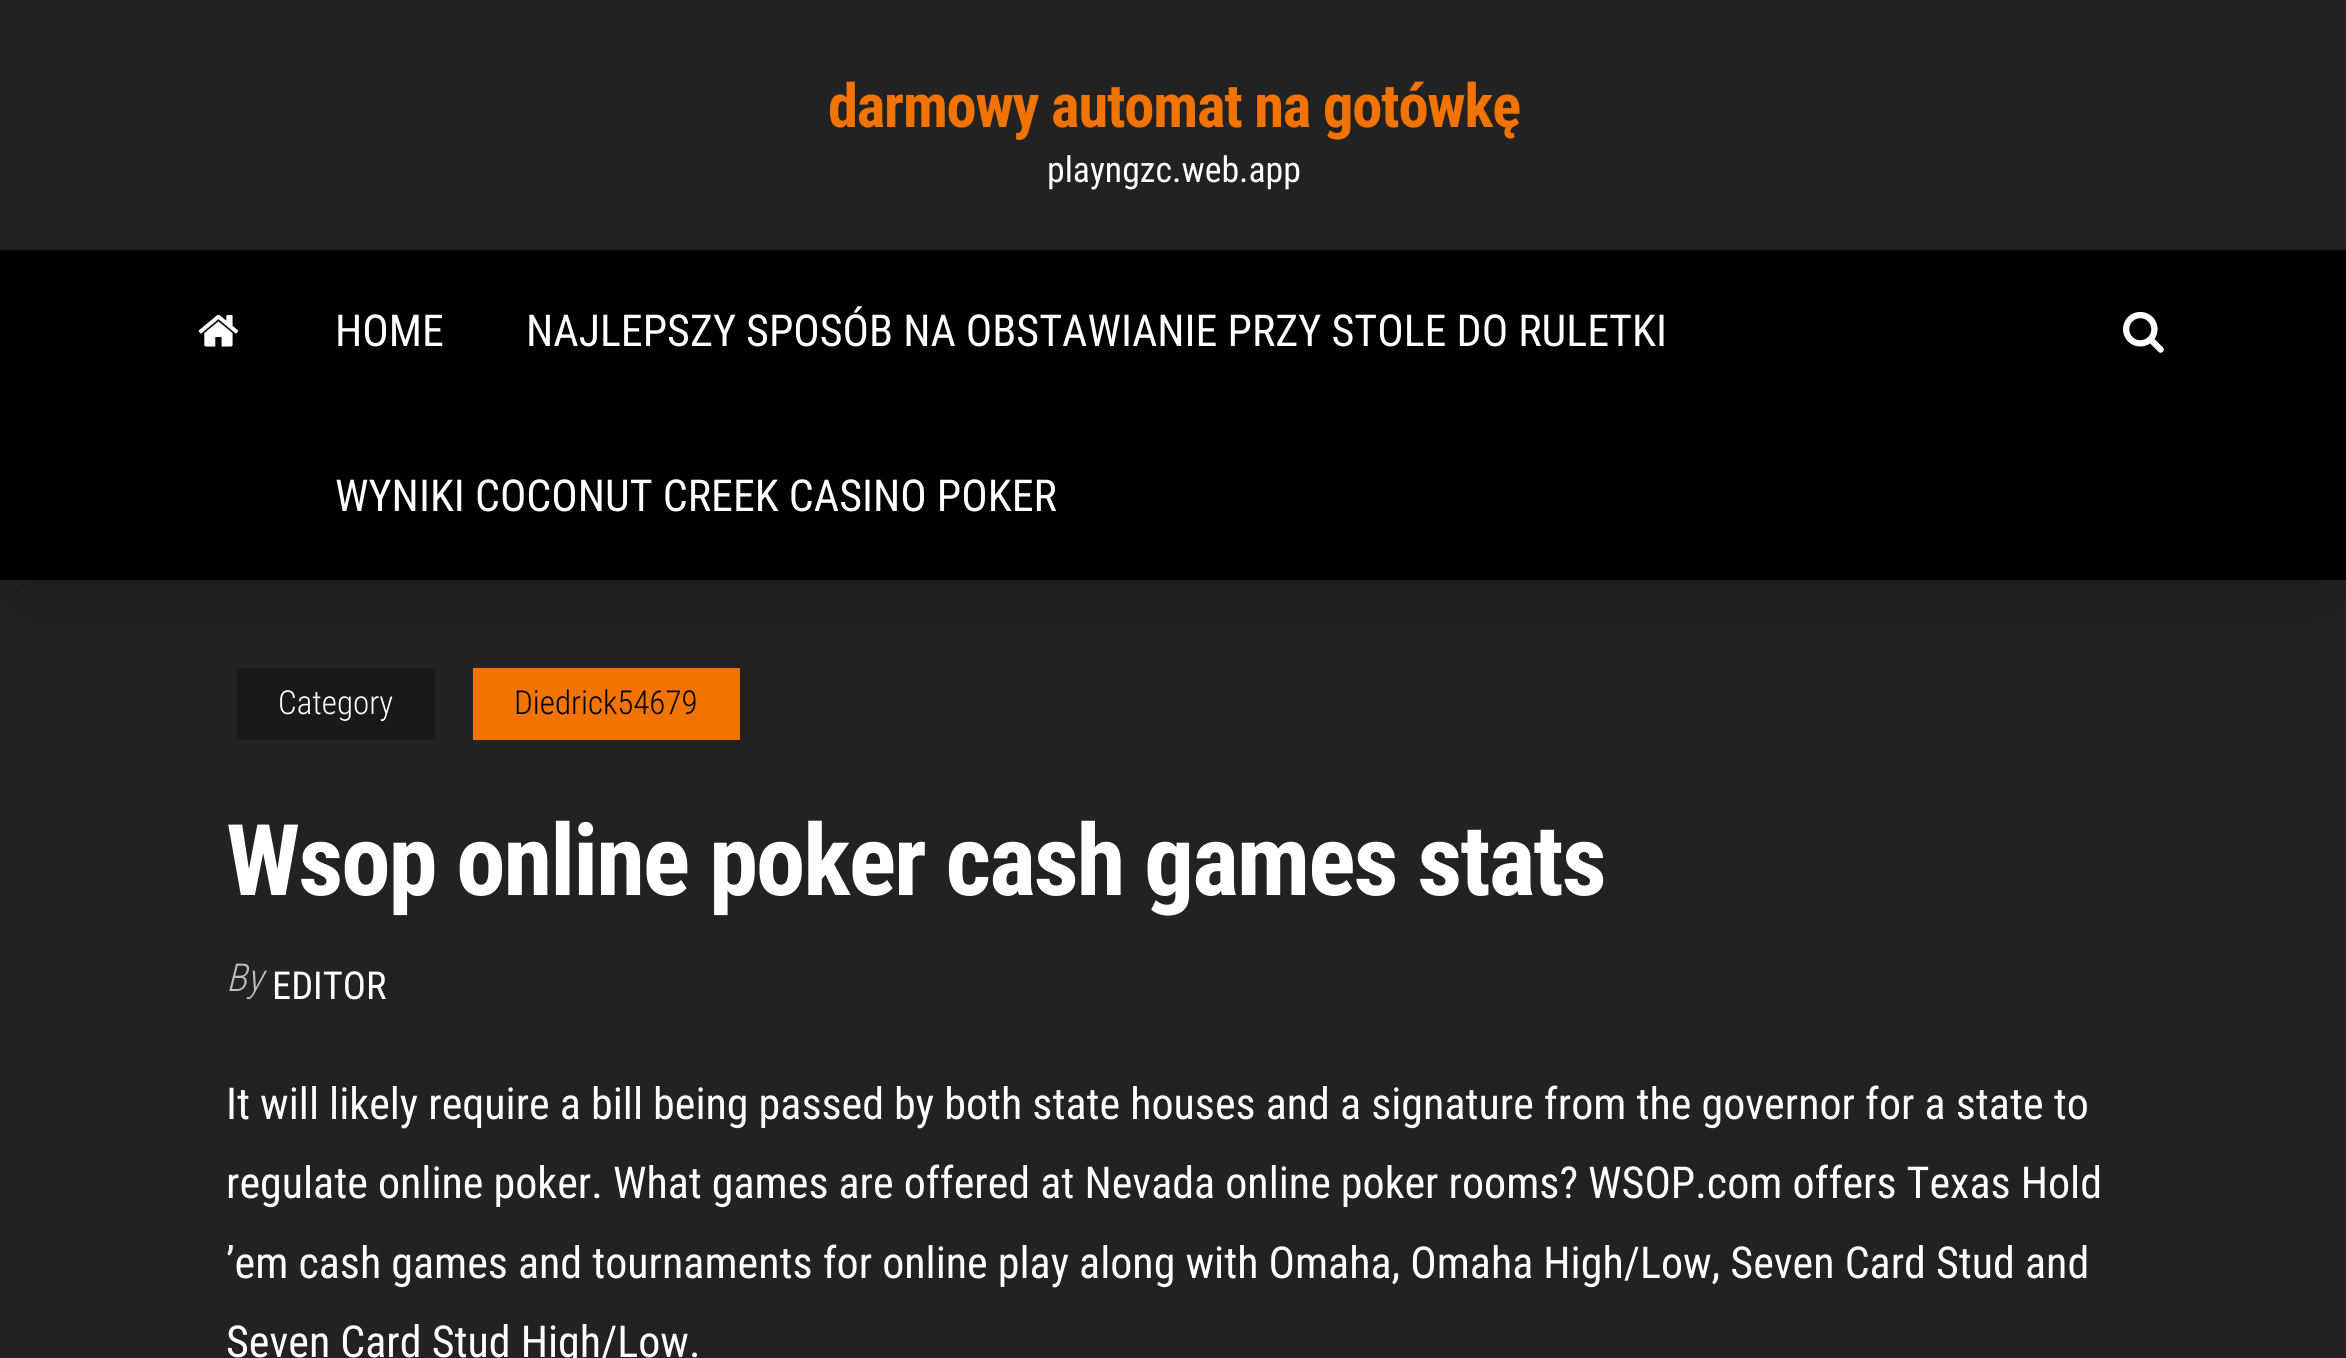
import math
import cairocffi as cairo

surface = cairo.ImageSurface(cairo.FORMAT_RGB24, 2346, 1358)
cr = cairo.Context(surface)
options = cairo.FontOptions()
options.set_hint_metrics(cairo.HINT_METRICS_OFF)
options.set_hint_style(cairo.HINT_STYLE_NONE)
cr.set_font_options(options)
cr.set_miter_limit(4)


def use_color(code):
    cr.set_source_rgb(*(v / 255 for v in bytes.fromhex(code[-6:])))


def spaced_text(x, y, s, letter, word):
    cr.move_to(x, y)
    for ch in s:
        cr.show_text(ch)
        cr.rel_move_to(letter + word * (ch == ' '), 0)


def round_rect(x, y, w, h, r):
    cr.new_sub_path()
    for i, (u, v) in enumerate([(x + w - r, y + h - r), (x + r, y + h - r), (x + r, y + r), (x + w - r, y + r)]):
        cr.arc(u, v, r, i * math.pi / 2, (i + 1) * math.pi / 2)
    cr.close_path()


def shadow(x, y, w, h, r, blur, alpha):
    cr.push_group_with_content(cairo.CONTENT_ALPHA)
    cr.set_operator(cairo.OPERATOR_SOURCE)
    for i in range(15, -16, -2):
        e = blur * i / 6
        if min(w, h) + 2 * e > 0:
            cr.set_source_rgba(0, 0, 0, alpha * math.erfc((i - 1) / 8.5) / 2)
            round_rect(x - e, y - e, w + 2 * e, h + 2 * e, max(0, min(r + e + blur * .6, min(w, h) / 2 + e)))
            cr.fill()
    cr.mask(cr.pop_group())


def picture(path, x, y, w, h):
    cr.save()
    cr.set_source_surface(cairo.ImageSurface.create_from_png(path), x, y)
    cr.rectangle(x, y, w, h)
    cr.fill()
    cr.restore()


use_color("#222222")
cr.paint()
cr.select_font_face("Roboto Condensed", cairo.FONT_SLANT_NORMAL, cairo.FONT_WEIGHT_BOLD)
cr.set_font_size(60.5)
use_color("#f27300")
spaced_text(828, 127, "darmowy automat na gotówkę", -1.2, 0)
cr.select_font_face("Roboto Condensed")
cr.set_font_size(35.75)
use_color("#ffffff")
cr.move_to(1047, 182)
cr.show_text("playngzc.web.app")
use_color("#000000")
shadow(33, 311, 2283, 264, 0, 27.5, 0.42)
use_color("#000000")
cr.rectangle(0, 250, 2346, 330)
cr.fill()
picture("img1.png", 198, 315, 41, 32)
cr.set_font_size(44)
use_color("#ffffff")
cr.move_to(335, 346)
cr.show_text("HOME")
cr.move_to(526, 346)
cr.show_text("NAJLEPSZY SPOSÓB NA OBSTAWIANIE PRZY STOLE DO RULETKI")
cr.move_to(335, 511)
cr.show_text("WYNIKI COCONUT CREEK CASINO POKER")
picture("img2.png", 2123, 311, 41, 42)
use_color("#191919")
cr.rectangle(237, 668, 198, 72)
cr.fill()
cr.select_font_face("Roboto Condensed Light")
cr.set_font_size(33)
use_color("#ffffff")
cr.move_to(278, 714)
cr.show_text("Category")
use_color("#f27300")
cr.rectangle(473, 668, 267, 72)
cr.fill()
use_color("#000000")
cr.move_to(514, 714)
cr.show_text("Diedrick54679")
cr.select_font_face("Roboto Condensed", cairo.FONT_SLANT_NORMAL, cairo.FONT_WEIGHT_BOLD)
cr.set_font_size(99)
use_color("#ffffff")
spaced_text(226, 895, "Wsop online poker cash games stats", -2, 0)
cr.select_font_face("Roboto Condensed Light", cairo.FONT_SLANT_ITALIC)
cr.set_font_size(38.5)
use_color("#bdbdbd")
cr.move_to(226, 991)
cr.show_text("By")
cr.select_font_face("Roboto Condensed")
use_color("#ffffff")
cr.move_to(272, 999)
cr.show_text("EDITOR")
cr.set_font_size(44)
cr.move_to(226, 1119)
cr.show_text("It will likely require a bill being passed by both state houses and a signature from the governor for a state to")
cr.move_to(226, 1198)
cr.show_text("regulate online poker. What games are offered at Nevada online poker rooms? WSOP.com offers Texas Hold")
cr.move_to(226, 1278)
cr.show_text("’em cash games and tournaments for online play along with Omaha, Omaha High/Low, Seven Card Stud and")
cr.move_to(226, 1357)
cr.show_text("Seven Card Stud High/Low.")
surface.write_to_png("result.png")
